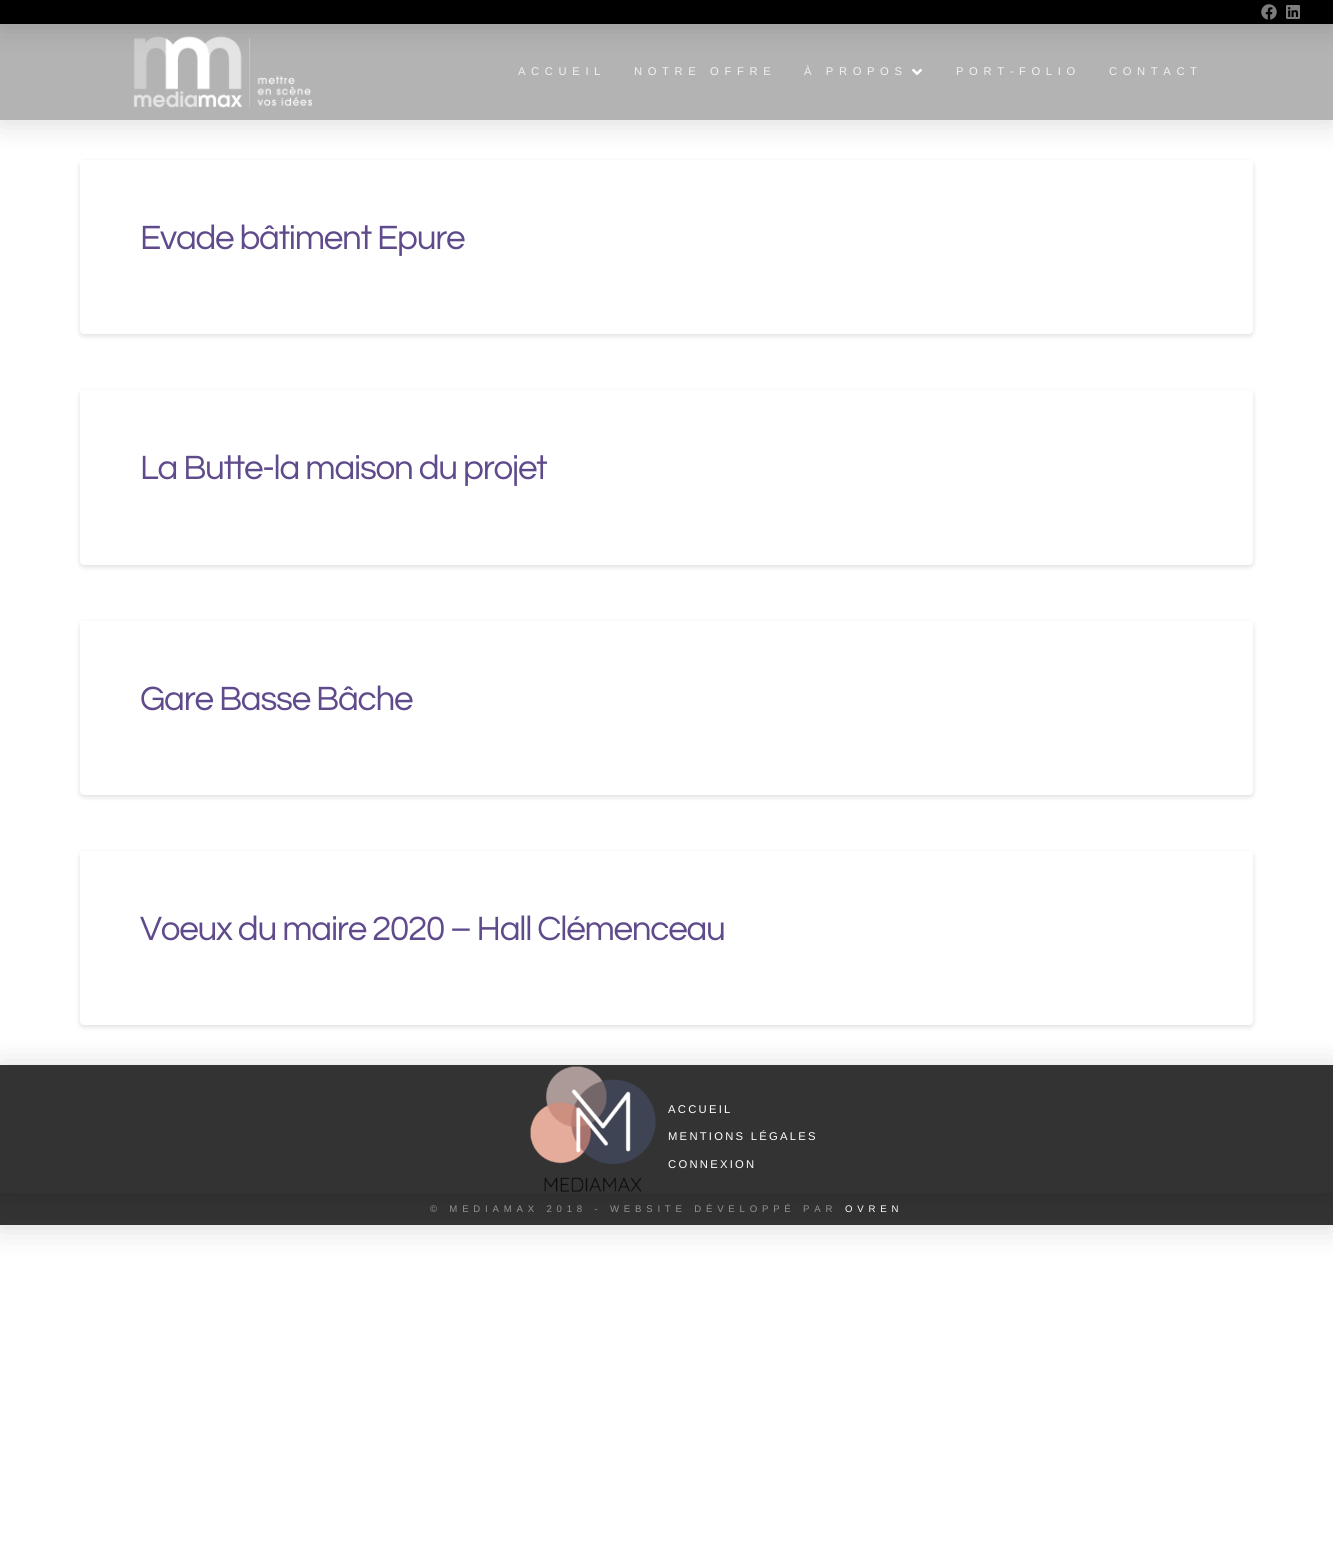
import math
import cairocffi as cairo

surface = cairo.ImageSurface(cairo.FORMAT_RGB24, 1333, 1542)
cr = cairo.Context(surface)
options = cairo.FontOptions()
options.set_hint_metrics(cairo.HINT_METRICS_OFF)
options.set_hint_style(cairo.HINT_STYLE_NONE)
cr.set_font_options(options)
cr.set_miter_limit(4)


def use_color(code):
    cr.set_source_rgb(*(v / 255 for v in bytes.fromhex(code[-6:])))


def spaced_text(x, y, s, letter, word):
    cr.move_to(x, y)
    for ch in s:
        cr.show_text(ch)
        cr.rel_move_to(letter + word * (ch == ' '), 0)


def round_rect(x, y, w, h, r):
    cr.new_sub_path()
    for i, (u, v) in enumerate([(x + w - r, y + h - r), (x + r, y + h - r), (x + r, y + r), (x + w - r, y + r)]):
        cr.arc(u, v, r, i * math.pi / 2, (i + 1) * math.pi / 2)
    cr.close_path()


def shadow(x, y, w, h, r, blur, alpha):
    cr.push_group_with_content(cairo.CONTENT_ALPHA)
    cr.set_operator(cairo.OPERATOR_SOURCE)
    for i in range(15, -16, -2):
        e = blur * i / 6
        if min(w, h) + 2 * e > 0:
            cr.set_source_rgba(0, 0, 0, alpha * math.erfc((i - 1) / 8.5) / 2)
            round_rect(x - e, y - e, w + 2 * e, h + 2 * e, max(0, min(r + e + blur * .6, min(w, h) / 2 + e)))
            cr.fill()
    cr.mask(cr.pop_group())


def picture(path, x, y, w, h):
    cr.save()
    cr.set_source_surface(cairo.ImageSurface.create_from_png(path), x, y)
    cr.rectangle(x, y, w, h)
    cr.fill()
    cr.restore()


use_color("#ffffff")
cr.paint()
use_color("#b3b3b3")
cr.rectangle(0, 24, 1333, 96)
cr.fill()
use_color("#000000")
shadow(0, 2, 1333, 24, 0, 16, 0.15)
use_color("#000000")
cr.rectangle(0, 0, 1333, 24)
cr.fill()
picture("img1.png", 1261, 4, 16, 16)
picture("img2.png", 1286, 5, 14, 14)
use_color("#000000")
shadow(80, 162, 1173, 174, 4, 2.5, 0.13)
use_color("#ffffff")
cr.new_path()
cr.move_to(80, 160)
cr.line_to(1253, 160)
cr.line_to(1253, 330)
cr.curve_to(1253, 332, 1251, 334, 1249, 334)
cr.line_to(84, 334)
cr.curve_to(82, 334, 80, 332, 80, 330)
cr.close_path()
cr.fill()
cr.save()
cr.set_fill_rule(cairo.FILL_RULE_EVEN_ODD)
cr.new_path()
cr.move_to(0, 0)
cr.line_to(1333, 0)
cr.line_to(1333, 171)
cr.line_to(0, 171)
cr.close_path()
cr.move_to(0, 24)
cr.line_to(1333, 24)
cr.line_to(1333, 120)
cr.line_to(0, 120)
cr.close_path()
cr.clip()
use_color("#000000")
shadow(0, 26, 1333, 96, 0, 16, 0.15)
cr.restore()
picture("img3.png", 133, 36, 180, 72)
cr.select_font_face("Liberation Sans")
cr.set_font_size(11.25)
use_color("#f1f1f1")
spaced_text(518, 75, "ACCUEIL", 5.6, 0)
spaced_text(634, 75, "NOTRE OFFRE", 5.6, 0)
spaced_text(804, 75, "À PROPOS", 5.6, 0)
picture("img4.png", 912, 68, 10, 8)
spaced_text(956, 75, "PORT-FOLIO", 5.6, 0)
spaced_text(1109, 75, "CONTACT", 5.6, 0)
cr.select_font_face("Questrial")
cr.set_font_size(35)
use_color("#5f4b8b")
spaced_text(140, 249, "Evade bâtiment Epure", -1.25, 0)
use_color("#000000")
shadow(80, 392, 1173, 175, 4, 2.5, 0.13)
use_color("#ffffff")
cr.new_path()
cr.move_to(80, 390)
cr.line_to(1253, 390)
cr.line_to(1253, 561)
cr.curve_to(1253, 563, 1251, 565, 1249, 565)
cr.line_to(84, 565)
cr.curve_to(82, 565, 80, 563, 80, 561)
cr.close_path()
cr.fill()
use_color("#5f4b8b")
spaced_text(140, 479, "La Butte-la maison du projet", -1.25, 0)
use_color("#000000")
shadow(80, 623, 1173, 174, 4, 2.5, 0.13)
use_color("#ffffff")
cr.new_path()
cr.move_to(80, 621)
cr.line_to(1253, 621)
cr.line_to(1253, 791)
cr.curve_to(1253, 793, 1251, 795, 1249, 795)
cr.line_to(84, 795)
cr.curve_to(82, 795, 80, 793, 80, 791)
cr.close_path()
cr.fill()
use_color("#5f4b8b")
spaced_text(140, 710, "Gare Basse Bâche", -1.25, 0)
use_color("#000000")
shadow(80, 853, 1173, 174, 4, 2.5, 0.13)
use_color("#ffffff")
cr.new_path()
cr.move_to(80, 851)
cr.line_to(1253, 851)
cr.line_to(1253, 1021)
cr.curve_to(1253, 1023, 1251, 1025, 1249, 1025)
cr.line_to(84, 1025)
cr.curve_to(82, 1025, 80, 1023, 80, 1021)
cr.close_path()
cr.fill()
use_color("#5f4b8b")
spaced_text(140, 940, "Voeux du maire 2020 – Hall Clémenceau", -1.25, 0)
use_color("#000000")
shadow(0, 1195, 1333, 32, 0, 16, 0.15)
use_color("#333333")
cr.rectangle(0, 1193, 1333, 32)
cr.fill()
use_color("#000000")
shadow(0, 1067, 1333, 128, 0, 16, 0.15)
use_color("#333333")
cr.rectangle(0, 1065, 1333, 128)
cr.fill()
picture("img5.png", 530, 1066, 126, 126)
cr.select_font_face("Liberation Sans")
cr.set_font_size(11.25)
use_color("#ffffff")
spaced_text(668, 1113, "ACCUEIL", 2.25, 0)
spaced_text(668, 1140, "MENTIONS LÉGALES", 2.25, 0)
spaced_text(668, 1168, "CONNEXION", 2.25, 0)
cr.set_font_size(9.6)
use_color("#929292")
spaced_text(430, 1212, "© MEDIAMAX 2018 - WEBSITE DÉVELOPPÉ PAR", 4.8, 0)
use_color("#ffffff")
spaced_text(845, 1212, "OVREN", 4.8, 0)
surface.write_to_png("result.png")
